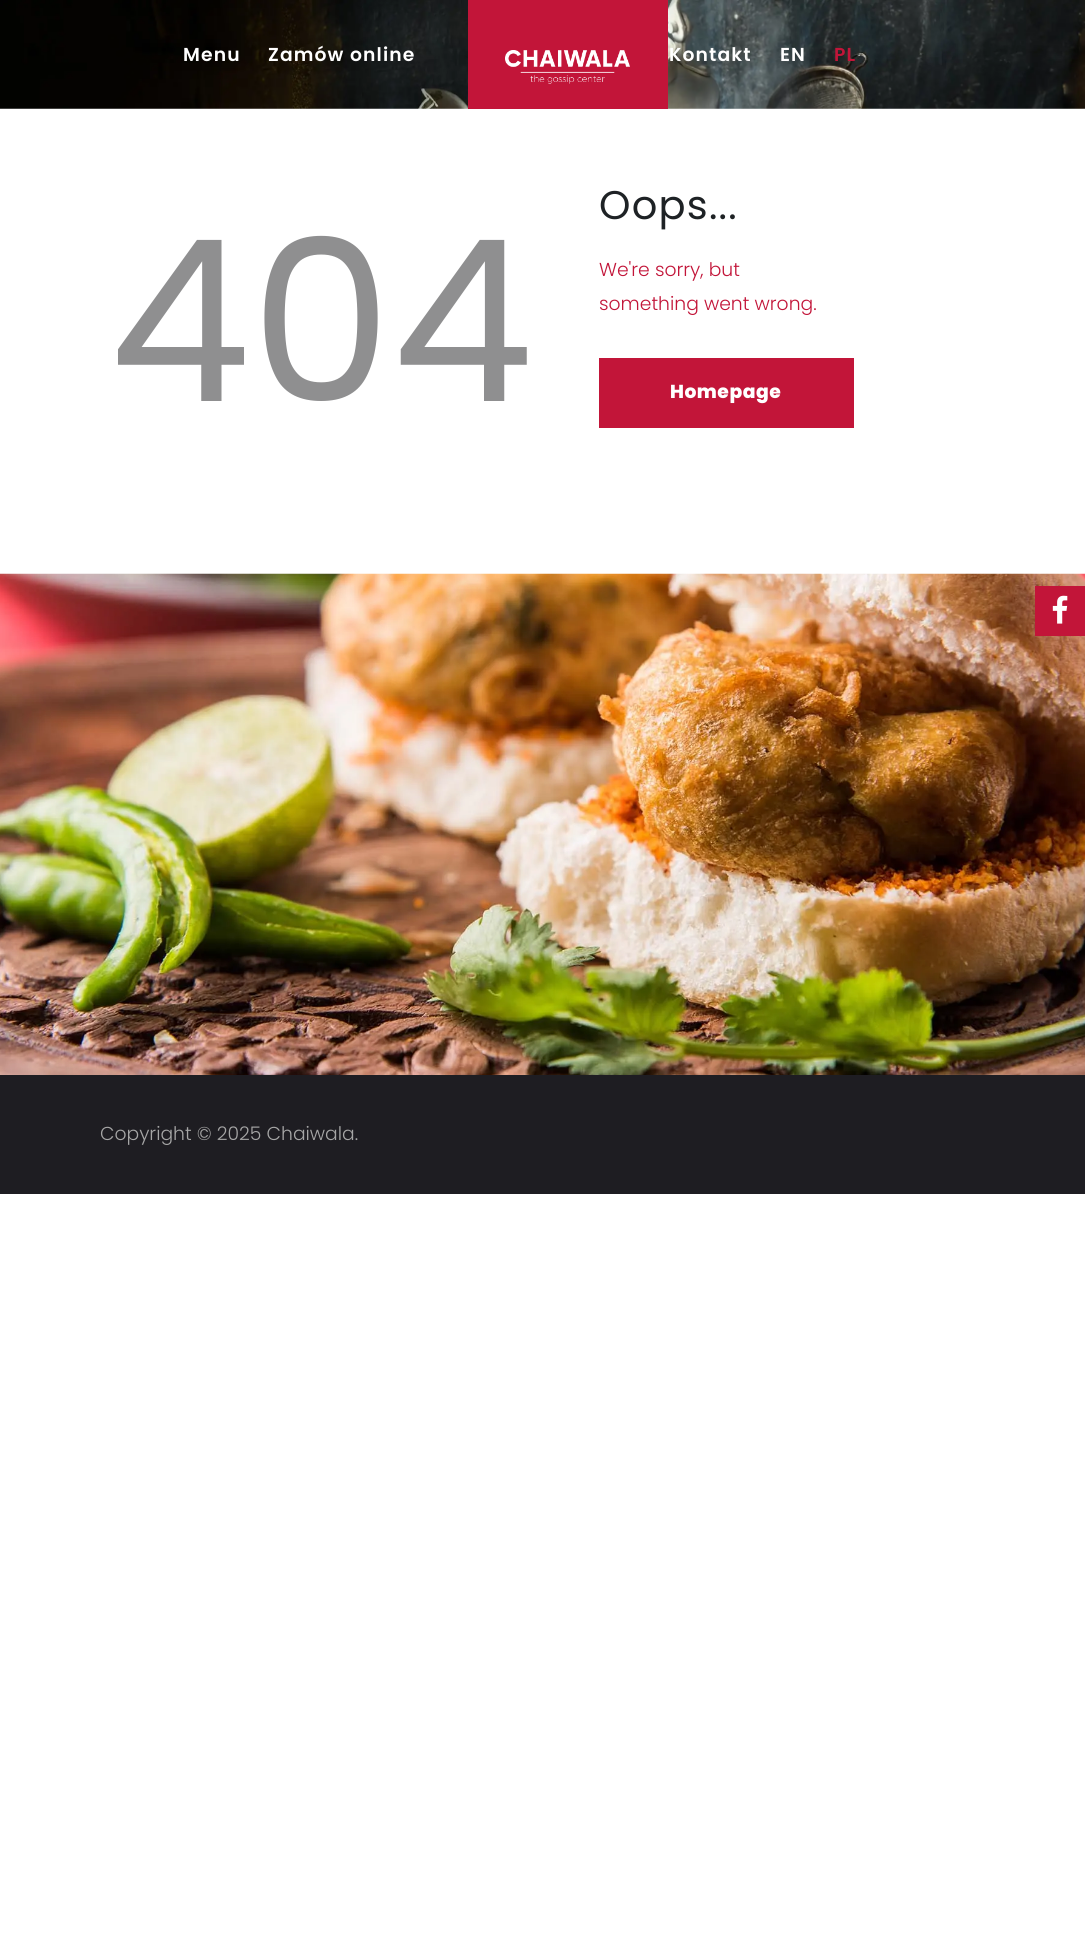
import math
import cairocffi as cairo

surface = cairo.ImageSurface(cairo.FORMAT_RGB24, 1085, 1952)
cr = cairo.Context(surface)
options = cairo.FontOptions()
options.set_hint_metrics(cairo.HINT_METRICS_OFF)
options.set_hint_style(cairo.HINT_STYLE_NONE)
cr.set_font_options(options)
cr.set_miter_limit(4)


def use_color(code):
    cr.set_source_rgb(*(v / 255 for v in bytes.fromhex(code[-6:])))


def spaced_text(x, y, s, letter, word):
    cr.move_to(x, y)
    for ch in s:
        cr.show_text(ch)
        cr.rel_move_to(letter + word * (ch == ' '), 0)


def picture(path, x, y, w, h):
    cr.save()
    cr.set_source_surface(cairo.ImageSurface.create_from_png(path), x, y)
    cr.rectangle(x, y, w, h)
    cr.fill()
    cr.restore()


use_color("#ffffff")
cr.paint()
picture("img1.png", 0, 0, 1085, 109)
cr.select_font_face("Poppins SemiBold")
cr.set_font_size(18.75)
use_color("#ffffff")
spaced_text(183, 61, "Menu", 1.1, 0)
spaced_text(268, 61, "Zamów online", 1.1, 0)
use_color("#c21539")
cr.rectangle(468, 0, 200, 109)
cr.fill()
picture("img2.png", 505, 50, 125, 34)
use_color("#ffffff")
spaced_text(669, 61, "Kontakt", 1.1, 0)
spaced_text(780, 61, "EN", 1.1, 0)
use_color("#c21539")
spaced_text(834, 61, "PL", 1.1, 0)
cr.select_font_face("Poppins")
cr.set_font_size(225)
use_color("#8f8f90")
cr.move_to(109, 401)
cr.show_text("404")
cr.set_font_size(40)
use_color("#1e2225")
spaced_text(599, 219, "Oops...", 1.25, 0)
cr.select_font_face("Poppins Light")
cr.set_font_size(18.75)
use_color("#c21539")
cr.move_to(599, 276)
cr.show_text("We're sorry, but")
cr.move_to(599, 310)
cr.show_text("something went wrong.")
cr.rectangle(599, 358, 255, 70)
cr.fill()
cr.select_font_face("Poppins ExtraBold")
use_color("#ffffff")
spaced_text(670, 398, "Homepage", 0.5, 0)
picture("img3.png", 0, 573, 1085, 502)
use_color("#1e1d22")
cr.rectangle(0, 1075, 1085, 119)
cr.fill()
cr.select_font_face("Poppins Light")
use_color("#a6a6a6")
cr.move_to(100, 1140)
cr.show_text("Copyright © 2025 Chaiwala.")
use_color("#c21539")
cr.rectangle(1035, 586, 50, 50)
cr.fill()
picture("img4.png", 1052, 595, 16, 29)
surface.write_to_png("result.png")
